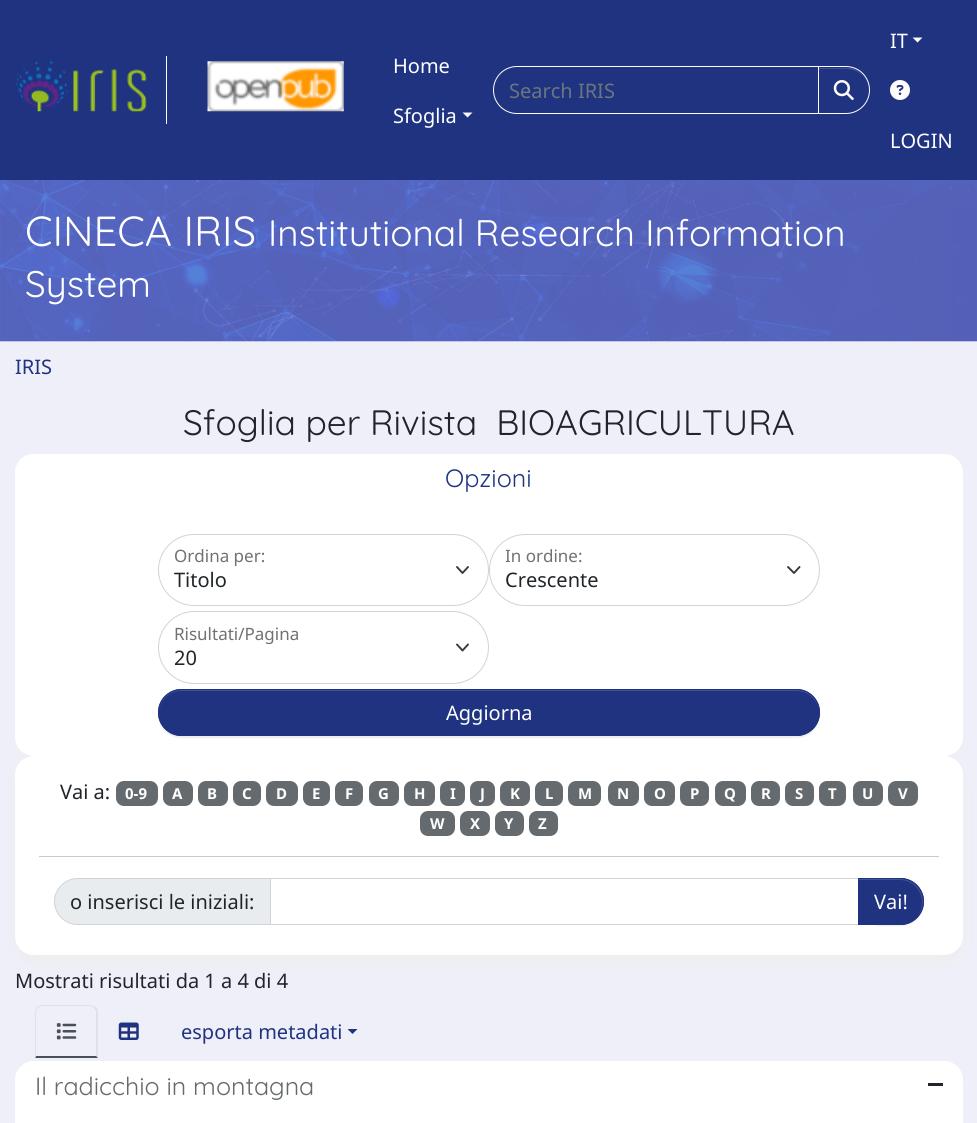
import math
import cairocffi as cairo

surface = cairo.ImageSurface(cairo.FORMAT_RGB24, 977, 1123)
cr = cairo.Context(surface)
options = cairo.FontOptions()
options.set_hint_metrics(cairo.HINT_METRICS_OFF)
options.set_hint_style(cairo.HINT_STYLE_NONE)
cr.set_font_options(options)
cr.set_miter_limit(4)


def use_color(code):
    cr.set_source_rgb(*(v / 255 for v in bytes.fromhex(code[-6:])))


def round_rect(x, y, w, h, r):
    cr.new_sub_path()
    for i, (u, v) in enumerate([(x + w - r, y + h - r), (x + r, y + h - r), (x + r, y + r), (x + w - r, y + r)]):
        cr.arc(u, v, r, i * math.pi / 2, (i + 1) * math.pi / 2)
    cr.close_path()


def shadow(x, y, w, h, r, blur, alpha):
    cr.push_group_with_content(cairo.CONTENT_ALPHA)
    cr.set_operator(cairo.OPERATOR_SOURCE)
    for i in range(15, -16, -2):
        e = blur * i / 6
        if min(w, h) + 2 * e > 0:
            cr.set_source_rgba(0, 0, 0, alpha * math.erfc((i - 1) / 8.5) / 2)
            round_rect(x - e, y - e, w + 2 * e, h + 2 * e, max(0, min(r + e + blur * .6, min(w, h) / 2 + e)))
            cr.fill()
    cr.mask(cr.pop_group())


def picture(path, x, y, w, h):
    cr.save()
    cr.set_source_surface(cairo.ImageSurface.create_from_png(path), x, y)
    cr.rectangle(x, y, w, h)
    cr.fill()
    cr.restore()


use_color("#eeeff9")
cr.paint()
use_color("#1f3381")
cr.rectangle(0, 0, 977, 180)
cr.fill()
use_color("#fefbfb")
cr.rectangle(166, 56, 1, 68)
cr.fill()
picture("img1.png", 16, 61, 131, 51)
picture("img2.png", 207, 61, 137, 51)
cr.select_font_face("Noto Sans")
cr.set_font_size(20)
use_color("#ffffff")
cr.move_to(393, 73)
cr.show_text("Home")
cr.move_to(393, 123)
cr.show_text("Sfoglia")
use_color("#fefbfb")
cr.new_path()
cr.move_to(462.5, 112.5)
cr.line_to(472.5, 112.5)
cr.line_to(467.5, 117.5)
cr.close_path()
cr.fill()
cr.new_path()
cr.move_to(517, 66.5)
cr.line_to(818.5, 66.5)
cr.line_to(818.5, 113.5)
cr.line_to(517, 113.5)
cr.curve_to(504, 113.5, 493.5, 103, 493.5, 90)
cr.curve_to(493.5, 77, 504, 66.5, 517, 66.5)
cr.close_path()
cr.set_line_width(1)
cr.stroke()
use_color("#6c757d")
cr.move_to(509, 98)
cr.show_text("Search IRIS")
use_color("#000000")
shadow(818, 68, 52, 47, 23.5, 0.5, 0.07)
use_color("#1f3381")
cr.new_path()
cr.move_to(818, 66)
cr.line_to(846, 66)
cr.curve_to(859.5, 66, 870, 76.5, 870, 90)
cr.curve_to(870, 103.5, 859.5, 114, 846, 114)
cr.line_to(818, 114)
cr.close_path()
cr.fill()
use_color("#415294")
cr.new_path()
cr.move_to(819, 69)
cr.line_to(846, 69)
cr.curve_to(859, 69, 869, 79, 869, 91)
cr.curve_to(869, 80, 861, 71, 851, 68)
cr.line_to(819, 68)
cr.close_path()
cr.fill()
cr.new_path()
cr.move_to(818.5, 66.5)
cr.line_to(846, 66.5)
cr.curve_to(859, 66.5, 869.5, 77, 869.5, 90)
cr.curve_to(869.5, 103, 859, 113.5, 846, 113.5)
cr.line_to(818.5, 113.5)
cr.close_path()
use_color("#fefbfb")
cr.stroke()
picture("img3.png", 833, 80, 21, 20)
use_color("#ffffff")
cr.move_to(890, 48)
cr.show_text("IT")
use_color("#fefbfb")
cr.new_path()
cr.move_to(912.5, 37.5)
cr.line_to(922.5, 37.5)
cr.line_to(917.5, 42.5)
cr.close_path()
cr.fill()
picture("img4.png", 890, 80, 20, 20)
use_color("#ffffff")
cr.move_to(890, 148)
cr.show_text("LOGIN")
picture("img5.png", 0, 180, 977, 162)
cr.select_font_face("Quicksand Light")
cr.set_font_size(42)
cr.move_to(25, 246)
cr.show_text("CINECA IRIS")
cr.set_font_size(36.9)
cr.move_to(268, 246)
cr.show_text("Institutional Research Information")
cr.move_to(25, 297)
cr.show_text("System")
cr.select_font_face("Noto Sans")
cr.set_font_size(20)
use_color("#1f3381")
cr.move_to(15, 374)
cr.show_text("IRIS")
cr.select_font_face("Quicksand Light")
cr.set_font_size(35.25)
use_color("#212529")
cr.move_to(183, 435)
cr.show_text("Sfoglia per Rivista  BIOAGRICULTURA")
use_color("#eeeeee")
shadow(18, 461, 942, 298, 16, 4, 1)
use_color("#ffffff")
round_rect(15, 454, 948, 302, 19)
cr.fill()
cr.new_path()
cr.move_to(34, 454)
cr.line_to(944, 454)
cr.curve_to(954.5, 454, 963, 462.5, 963, 473)
cr.line_to(963, 514)
cr.line_to(15, 514)
cr.line_to(15, 473)
cr.curve_to(15, 462.5, 23.5, 454, 34, 454)
cr.close_path()
cr.fill()
cr.set_font_size(25)
use_color("#1f3381")
cr.move_to(445, 487)
cr.show_text("Opzioni")
cr.new_path()
cr.move_to(457, 567)
cr.line_to(462.5, 573)
cr.line_to(468, 567)
use_color("#343a40")
cr.set_line_width(1.9)
cr.set_line_cap(cairo.LINE_CAP_ROUND)
cr.set_line_join(cairo.LINE_JOIN_ROUND)
cr.stroke()
round_rect(158.5, 534.5, 330, 71, 35.5)
use_color("#ced4da")
cr.set_line_width(1)
cr.set_line_cap(cairo.LINE_CAP_BUTT)
cr.set_line_join(cairo.LINE_JOIN_MITER)
cr.stroke()
cr.select_font_face("Noto Sans")
cr.set_font_size(17)
use_color("#6f7174")
cr.move_to(174, 562)
cr.show_text("Ordina per:")
cr.set_font_size(20)
use_color("#212529")
cr.move_to(174, 587)
cr.show_text("Titolo")
cr.new_path()
cr.move_to(788, 567)
cr.line_to(794, 573)
cr.line_to(799.5, 567)
use_color("#343a40")
cr.set_line_width(1.9)
cr.set_line_cap(cairo.LINE_CAP_ROUND)
cr.set_line_join(cairo.LINE_JOIN_ROUND)
cr.stroke()
round_rect(489.5, 534.5, 330, 71, 35.5)
use_color("#ced4da")
cr.set_line_width(1)
cr.set_line_cap(cairo.LINE_CAP_BUTT)
cr.set_line_join(cairo.LINE_JOIN_MITER)
cr.stroke()
cr.set_font_size(17)
use_color("#6f7174")
cr.move_to(505, 562)
cr.show_text("In ordine:")
cr.set_font_size(20)
use_color("#212529")
cr.move_to(505, 587)
cr.show_text("Crescente")
cr.new_path()
cr.move_to(457, 644.5)
cr.line_to(462.5, 650.5)
cr.line_to(468, 644.5)
use_color("#343a40")
cr.set_line_width(1.9)
cr.set_line_cap(cairo.LINE_CAP_ROUND)
cr.set_line_join(cairo.LINE_JOIN_ROUND)
cr.stroke()
round_rect(158.5, 611.5, 330, 72, 36)
use_color("#ced4da")
cr.set_line_width(1)
cr.set_line_cap(cairo.LINE_CAP_BUTT)
cr.set_line_join(cairo.LINE_JOIN_MITER)
cr.stroke()
cr.set_font_size(17)
use_color("#6f7174")
cr.move_to(174, 640)
cr.show_text("Risultati/Pagina")
cr.set_font_size(20)
use_color("#212529")
cr.move_to(174, 665)
cr.show_text("20")
use_color("#000000")
shadow(158, 690, 662, 48, 24, 0.5, 0.07)
use_color("#1f3381")
round_rect(158, 689, 662, 47, 23.5)
cr.fill()
use_color("#415294")
cr.new_path()
cr.move_to(181, 691)
cr.line_to(796, 691)
cr.curve_to(809, 691, 819, 701, 819, 713)
cr.line_to(819, 712)
cr.curve_to(819, 700, 809, 690, 796, 690)
cr.line_to(182, 690)
cr.curve_to(169, 690, 159, 700, 159, 712)
cr.line_to(159, 713)
cr.curve_to(159, 701, 169, 691, 181, 691)
cr.close_path()
cr.fill()
round_rect(158.5, 689.5, 661, 46, 23)
use_color("#1f3381")
cr.stroke()
use_color("#ffffff")
cr.move_to(446, 720)
cr.show_text("Aggiorna")
use_color("#eeeeee")
shadow(18, 764, 942, 194, 16, 4, 1)
shadow(19, 773, 940, 191, 15, 9.5, 1)
use_color("#ffffff")
round_rect(15, 756, 948, 199, 19)
cr.fill()
use_color("#212529")
cr.move_to(60, 799)
cr.show_text("Vai a:")
use_color("#656a6e")
round_rect(116, 781, 42, 25, 8)
cr.fill()
cr.select_font_face("Noto Sans", cairo.FONT_SLANT_NORMAL, cairo.FONT_WEIGHT_BOLD)
cr.set_font_size(15)
use_color("#ffffff")
cr.move_to(125, 799)
cr.show_text("0-9")
use_color("#656a6e")
round_rect(163, 781, 30, 25, 8)
cr.fill()
use_color("#ffffff")
cr.move_to(172, 799)
cr.show_text("A")
use_color("#656a6e")
round_rect(198, 781, 30, 25, 8)
cr.fill()
use_color("#ffffff")
cr.move_to(207, 799)
cr.show_text("B")
use_color("#656a6e")
round_rect(233, 781, 28, 25, 8)
cr.fill()
use_color("#ffffff")
cr.move_to(242, 799)
cr.show_text("C")
use_color("#656a6e")
round_rect(266, 781, 32, 25, 8)
cr.fill()
use_color("#ffffff")
cr.move_to(276, 799)
cr.show_text("D")
use_color("#656a6e")
round_rect(303, 781, 27, 25, 8)
cr.fill()
use_color("#ffffff")
cr.move_to(312, 799)
cr.show_text("E")
use_color("#656a6e")
round_rect(335, 781, 28, 25, 8)
cr.fill()
use_color("#ffffff")
cr.move_to(345, 799)
cr.show_text("F")
use_color("#656a6e")
round_rect(369, 781, 30, 25, 8)
cr.fill()
use_color("#ffffff")
cr.move_to(378, 799)
cr.show_text("G")
use_color("#656a6e")
round_rect(404, 781, 31, 25, 8)
cr.fill()
use_color("#ffffff")
cr.move_to(414, 799)
cr.show_text("H")
use_color("#656a6e")
round_rect(440, 781, 25, 25, 8)
cr.fill()
use_color("#ffffff")
cr.move_to(450, 799)
cr.show_text("I")
use_color("#656a6e")
round_rect(470, 781, 25, 25, 8)
cr.fill()
use_color("#ffffff")
cr.move_to(480, 799)
cr.show_text("J")
use_color("#656a6e")
round_rect(500, 781, 30, 25, 8)
cr.fill()
use_color("#ffffff")
cr.move_to(510, 799)
cr.show_text("K")
use_color("#656a6e")
round_rect(535, 781, 28, 25, 8)
cr.fill()
use_color("#ffffff")
cr.move_to(545, 799)
cr.show_text("L")
use_color("#656a6e")
round_rect(568, 781, 33, 25, 8)
cr.fill()
use_color("#ffffff")
cr.move_to(578, 799)
cr.show_text("M")
use_color("#656a6e")
round_rect(608, 781, 31, 25, 8)
cr.fill()
use_color("#ffffff")
cr.move_to(617, 799)
cr.show_text("N")
use_color("#656a6e")
round_rect(644, 781, 31, 25, 8)
cr.fill()
use_color("#ffffff")
cr.move_to(654, 799)
cr.show_text("O")
use_color("#656a6e")
round_rect(680, 781, 29, 25, 8)
cr.fill()
use_color("#ffffff")
cr.move_to(690, 799)
cr.show_text("P")
use_color("#656a6e")
round_rect(715, 781, 31, 25, 8)
cr.fill()
use_color("#ffffff")
cr.move_to(724, 799)
cr.show_text("Q")
use_color("#656a6e")
round_rect(751, 781, 29, 25, 8)
cr.fill()
use_color("#ffffff")
cr.move_to(761, 799)
cr.show_text("R")
use_color("#656a6e")
round_rect(785, 781, 29, 25, 8)
cr.fill()
use_color("#ffffff")
cr.move_to(795, 799)
cr.show_text("S")
use_color("#656a6e")
round_rect(819, 781, 27, 25, 8)
cr.fill()
use_color("#ffffff")
cr.move_to(828, 799)
cr.show_text("T")
use_color("#656a6e")
round_rect(853, 781, 30, 25, 8)
cr.fill()
use_color("#ffffff")
cr.move_to(862, 799)
cr.show_text("U")
use_color("#656a6e")
round_rect(888, 781, 30, 25, 8)
cr.fill()
use_color("#ffffff")
cr.move_to(898, 799)
cr.show_text("V")
use_color("#656a6e")
round_rect(420, 811, 35, 25, 8)
cr.fill()
use_color("#ffffff")
cr.move_to(430, 829)
cr.show_text("W")
use_color("#656a6e")
round_rect(460, 811, 30, 25, 8)
cr.fill()
use_color("#ffffff")
cr.move_to(470, 829)
cr.show_text("X")
use_color("#656a6e")
round_rect(495, 811, 29, 25, 8)
cr.fill()
use_color("#ffffff")
cr.move_to(504, 829)
cr.show_text("Y")
use_color("#656a6e")
round_rect(529, 811, 29, 25, 8)
cr.fill()
use_color("#ffffff")
cr.move_to(538, 829)
cr.show_text("Z")
use_color("#c8c9ca")
cr.rectangle(39, 856, 900, 1)
cr.fill()
use_color("#e9ecef")
cr.new_path()
cr.move_to(77.5, 878.5)
cr.line_to(270.5, 878.5)
cr.line_to(270.5, 924.5)
cr.line_to(77.5, 924.5)
cr.curve_to(65, 924.5, 54.5, 914, 54.5, 901.5)
cr.curve_to(54.5, 889, 65, 878.5, 77.5, 878.5)
cr.close_path()
cr.fill_preserve()
use_color("#ced4da")
cr.stroke()
cr.select_font_face("Noto Sans")
cr.set_font_size(20)
use_color("#212529")
cr.move_to(70, 909)
cr.show_text("o inserisci le iniziali:")
cr.rectangle(270.5, 878.5, 588, 46)
use_color("#ced4da")
cr.stroke()
use_color("#000000")
shadow(858, 879, 66, 47, 23.5, 0.5, 0.07)
use_color("#1f3381")
cr.new_path()
cr.move_to(858, 878)
cr.line_to(900.5, 878)
cr.curve_to(913.5, 878, 924, 888.5, 924, 901.5)
cr.curve_to(924, 914.5, 913.5, 925, 900.5, 925)
cr.line_to(858, 925)
cr.close_path()
cr.fill()
use_color("#415294")
cr.new_path()
cr.move_to(859, 880)
cr.line_to(900, 880)
cr.curve_to(912, 880, 922, 890, 922, 902)
cr.curve_to(922, 908, 920, 914, 916, 918)
cr.curve_to(920, 914, 923, 908, 923, 902)
cr.curve_to(923, 889, 913, 879, 900, 879)
cr.line_to(859, 879)
cr.close_path()
cr.fill()
cr.new_path()
cr.move_to(858.5, 878.5)
cr.line_to(900.5, 878.5)
cr.curve_to(913, 878.5, 923.5, 889, 923.5, 901.5)
cr.curve_to(923.5, 914, 913, 924.5, 900.5, 924.5)
cr.line_to(858.5, 924.5)
cr.close_path()
use_color("#1f3381")
cr.stroke()
use_color("#ffffff")
cr.move_to(874, 909)
cr.show_text("Vai!")
use_color("#212529")
cr.move_to(15, 988)
cr.show_text("Mostrati risultati da 1 a 4 di 4")
use_color("#dee2e6")
cr.new_path()
cr.move_to(42, 1005)
cr.curve_to(40, 1005, 38, 1006, 37, 1007)
cr.line_to(38, 1008)
cr.curve_to(39, 1007, 40, 1006, 42, 1006)
cr.line_to(90, 1006)
cr.curve_to(92, 1006, 93, 1007, 94, 1008)
cr.line_to(96, 1007)
cr.curve_to(94, 1006, 92, 1005, 90, 1005)
cr.close_path()
cr.fill()
cr.new_path()
cr.move_to(96, 1007)
cr.line_to(98, 1010)
cr.line_to(98, 1058)
cr.line_to(96, 1056)
cr.line_to(96, 1012)
cr.curve_to(96, 1011, 95, 1009, 94, 1008)
cr.close_path()
cr.fill()
use_color("#495057")
cr.new_path()
cr.move_to(98, 1058)
cr.line_to(96, 1056)
cr.line_to(36, 1056)
cr.line_to(35, 1058)
cr.close_path()
cr.fill()
use_color("#dee2e6")
cr.new_path()
cr.move_to(35, 1058)
cr.line_to(36, 1056)
cr.line_to(36, 1012)
cr.curve_to(36, 1010, 37, 1009, 38, 1008)
cr.line_to(37, 1007)
cr.curve_to(36, 1008, 35, 1010, 35, 1012)
cr.close_path()
cr.fill()
picture("img6.png", 56, 1023, 21, 17)
picture("img7.png", 118, 1022, 21, 18)
use_color("#1f3381")
cr.move_to(181, 1039)
cr.show_text("esporta metadati")
cr.new_path()
cr.move_to(347.5, 1029)
cr.line_to(357.5, 1029)
cr.line_to(352.5, 1034)
cr.close_path()
cr.fill()
use_color("#eeeeee")
shadow(18, 1069, 942, 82, 16, 4, 1)
use_color("#ffffff")
cr.new_path()
cr.move_to(34, 1061)
cr.line_to(944, 1061)
cr.curve_to(954.5, 1061, 963, 1069.5, 963, 1080)
cr.line_to(963, 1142)
cr.line_to(15, 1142)
cr.line_to(15, 1080)
cr.curve_to(15, 1069.5, 23.5, 1061, 34, 1061)
cr.close_path()
cr.fill()
cr.select_font_face("Quicksand Light")
cr.set_font_size(25)
use_color("#656a6e")
cr.move_to(35, 1095)
cr.show_text("Il radicchio in montagna")
use_color("#212529")
cr.rectangle(928, 1083, 15, 3)
cr.fill()
surface.write_to_png("result.png")
